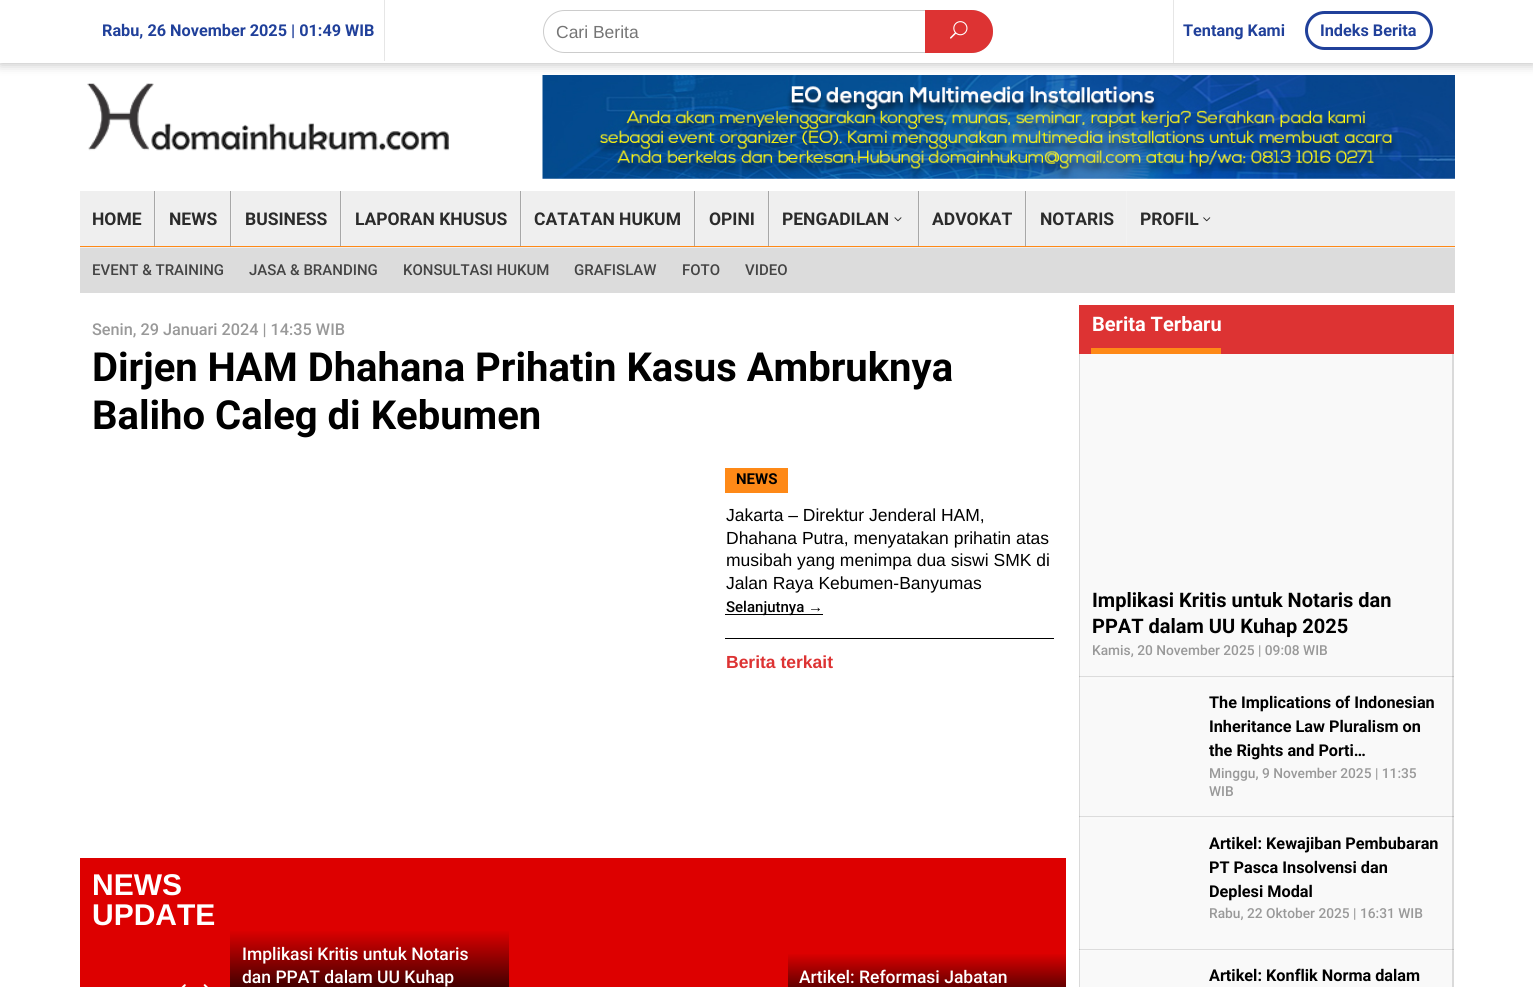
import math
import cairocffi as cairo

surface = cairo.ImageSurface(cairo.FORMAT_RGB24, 1533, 987)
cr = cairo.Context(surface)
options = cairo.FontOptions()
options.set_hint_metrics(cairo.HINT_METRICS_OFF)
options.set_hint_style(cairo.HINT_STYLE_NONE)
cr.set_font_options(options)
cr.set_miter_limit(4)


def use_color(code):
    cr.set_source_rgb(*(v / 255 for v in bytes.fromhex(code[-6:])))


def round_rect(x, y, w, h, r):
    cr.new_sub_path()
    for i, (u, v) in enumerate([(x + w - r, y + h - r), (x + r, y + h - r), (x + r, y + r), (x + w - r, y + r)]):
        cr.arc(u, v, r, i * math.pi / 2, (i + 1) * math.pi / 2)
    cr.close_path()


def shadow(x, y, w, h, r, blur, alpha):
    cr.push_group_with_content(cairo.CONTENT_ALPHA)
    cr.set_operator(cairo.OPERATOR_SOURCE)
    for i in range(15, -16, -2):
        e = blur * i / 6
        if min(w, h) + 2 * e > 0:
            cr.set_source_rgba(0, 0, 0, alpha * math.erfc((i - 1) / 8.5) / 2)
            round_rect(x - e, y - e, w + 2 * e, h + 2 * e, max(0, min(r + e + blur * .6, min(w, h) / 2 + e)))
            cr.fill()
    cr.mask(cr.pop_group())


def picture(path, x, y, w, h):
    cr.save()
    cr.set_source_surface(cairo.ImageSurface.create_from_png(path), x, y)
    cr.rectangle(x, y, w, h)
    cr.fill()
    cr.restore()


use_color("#ffffff")
cr.paint()
use_color("#000000")
shadow(0, 0, 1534, 63, 0, 6, 0.3)
use_color("#ffffff")
cr.rectangle(0, 0, 1533, 63)
cr.fill()
cr.select_font_face("Roboto", cairo.FONT_SLANT_NORMAL, cairo.FONT_WEIGHT_BOLD)
cr.set_font_size(16.25)
use_color("#20409a")
cr.move_to(102, 36)
cr.show_text("Rabu, 26 November 2025 | 01:49 WIB")
use_color("#e6e6e6")
cr.rectangle(384, 0, 1, 61)
cr.fill()
round_rect(543.5, 10.5, 449, 42, 21)
use_color("#cccccc")
cr.set_line_width(1)
cr.stroke()
cr.select_font_face("Liberation Sans")
cr.set_font_size(17.5)
use_color("#757575")
cr.move_to(556, 38)
cr.show_text("Cari Berita")
use_color("#dd3333")
cr.new_path()
cr.move_to(925, 10)
cr.line_to(971.5, 10)
cr.curve_to(983.5, 10, 993, 19.5, 993, 31.5)
cr.curve_to(993, 43.5, 983.5, 53, 971.5, 53)
cr.line_to(925, 53)
cr.close_path()
cr.fill()
picture("img1.png", 950, 21, 18, 18)
use_color("#e6e6e6")
cr.rectangle(1173, 0, 1, 63)
cr.fill()
cr.select_font_face("Roboto", cairo.FONT_SLANT_NORMAL, cairo.FONT_WEIGHT_BOLD)
cr.set_font_size(16.25)
use_color("#20409a")
cr.move_to(1183, 36)
cr.show_text("Tentang Kami")
round_rect(1306.5, 12.5, 125, 36, 18)
cr.set_line_width(3)
cr.stroke()
cr.move_to(1320, 36)
cr.show_text("Indeks Berita")
picture("img2.png", 87, 83, 362, 68)
picture("img3.png", 542, 75, 913, 104)
use_color("#efefef")
cr.rectangle(80, 191, 1375, 57)
cr.fill()
use_color("#fe8917")
cr.rectangle(80, 246, 1375, 1)
cr.fill()
use_color("#a7a7a7")
cr.rectangle(154, 191, 1, 55)
cr.fill()
cr.set_font_size(17.5)
use_color("#2b2b2b")
cr.move_to(92, 225)
cr.show_text("HOME")
use_color("#a7a7a7")
cr.rectangle(230, 191, 1, 55)
cr.fill()
use_color("#f2f2f2")
cr.rectangle(155, 191, 1, 55)
cr.fill()
use_color("#2b2b2b")
cr.move_to(169, 225)
cr.show_text("NEWS")
use_color("#a7a7a7")
cr.rectangle(340, 191, 1, 55)
cr.fill()
use_color("#f2f2f2")
cr.rectangle(231, 191, 1, 55)
cr.fill()
use_color("#2b2b2b")
cr.move_to(245, 225)
cr.show_text("BUSINESS")
use_color("#a7a7a7")
cr.rectangle(520, 191, 1, 55)
cr.fill()
use_color("#f2f2f2")
cr.rectangle(341, 191, 1, 55)
cr.fill()
use_color("#2b2b2b")
cr.move_to(355, 225)
cr.show_text("LAPORAN KHUSUS")
use_color("#a7a7a7")
cr.rectangle(694, 191, 1, 55)
cr.fill()
use_color("#f2f2f2")
cr.rectangle(521, 191, 1, 55)
cr.fill()
use_color("#2b2b2b")
cr.move_to(534, 225)
cr.show_text("CATATAN HUKUM")
use_color("#a7a7a7")
cr.rectangle(768, 191, 1, 55)
cr.fill()
use_color("#f2f2f2")
cr.rectangle(695, 191, 1, 55)
cr.fill()
use_color("#2b2b2b")
cr.move_to(709, 225)
cr.show_text("OPINI")
use_color("#a7a7a7")
cr.rectangle(918, 191, 1, 55)
cr.fill()
use_color("#f2f2f2")
cr.rectangle(769, 191, 1, 55)
cr.fill()
use_color("#2b2b2b")
cr.move_to(782, 225)
cr.show_text("PENGADILAN")
picture("img4.png", 894, 217, 8, 5)
use_color("#a7a7a7")
cr.rectangle(1025, 191, 1, 55)
cr.fill()
use_color("#f2f2f2")
cr.rectangle(919, 191, 1, 55)
cr.fill()
use_color("#2b2b2b")
cr.move_to(932, 225)
cr.show_text("ADVOKAT")
use_color("#f2f2f2")
cr.rectangle(1026, 191, 1, 55)
cr.fill()
use_color("#2b2b2b")
cr.move_to(1040, 225)
cr.show_text("NOTARIS")
use_color("#f2f2f2")
cr.rectangle(1126, 191, 1, 55)
cr.fill()
use_color("#2b2b2b")
cr.move_to(1140, 225)
cr.show_text("PROFIL")
picture("img5.png", 1203, 217, 8, 5)
use_color("#dcdcdc")
cr.rectangle(80, 248, 1375, 45)
cr.fill()
cr.select_font_face("Roboto Medium")
cr.set_font_size(15)
use_color("#444444")
cr.move_to(92, 275)
cr.show_text("EVENT & TRAINING")
cr.move_to(249, 275)
cr.show_text("JASA & BRANDING")
cr.move_to(403, 275)
cr.show_text("KONSULTASI HUKUM")
cr.move_to(574, 275)
cr.show_text("GRAFISLAW")
cr.move_to(682, 275)
cr.show_text("FOTO")
cr.move_to(745, 275)
cr.show_text("VIDEO")
cr.set_font_size(16.25)
use_color("#999999")
cr.move_to(92, 335)
cr.show_text("Senin, 29 Januari 2024 | 14:35 WIB")
cr.select_font_face("Roboto", cairo.FONT_SLANT_NORMAL, cairo.FONT_WEIGHT_BOLD)
cr.set_font_size(40)
use_color("#000000")
cr.move_to(92, 381)
cr.show_text("Dirjen HAM Dhahana Prihatin Kasus Ambruknya")
cr.move_to(92, 429)
cr.show_text("Baliho Caleg di Kebumen")
use_color("#fe8917")
cr.rectangle(725, 468, 63, 25)
cr.fill()
cr.set_font_size(15)
use_color("#000000")
cr.move_to(736, 484)
cr.show_text("NEWS")
cr.select_font_face("Liberation Sans")
cr.set_font_size(17.5)
cr.move_to(726, 521)
cr.show_text("Jakarta – Direktur Jenderal HAM,")
cr.move_to(726, 544)
cr.show_text("Dhahana Putra, menyatakan prihatin atas")
cr.move_to(726, 566)
cr.show_text("musibah yang menimpa dua siswi SMK di")
cr.move_to(726, 589)
cr.show_text("Jalan Raya Kebumen-Banyumas")
cr.rectangle(725, 614, 98, 1)
cr.fill()
cr.select_font_face("Roboto Medium")
cr.set_font_size(15)
cr.move_to(726, 612)
cr.show_text("Selanjutnya")
cr.select_font_face("Liberation Sans")
cr.move_to(808, 612)
cr.show_text("→")
cr.rectangle(725, 638, 329, 1)
cr.fill()
cr.select_font_face("Liberation Sans", cairo.FONT_SLANT_NORMAL, cairo.FONT_WEIGHT_BOLD)
cr.set_font_size(17.5)
use_color("#dd3333")
cr.move_to(726, 668)
cr.show_text("Berita terkait")
use_color("#dd0000")
cr.rectangle(80, 858, 986, 129)
cr.fill()
cr.set_font_size(30)
use_color("#ffffff")
cr.move_to(92, 895)
cr.show_text("NEWS")
cr.move_to(92, 925)
cr.show_text("UPDATE")
picture("img6.png", 181, 984, 5, 3)
picture("img7.png", 203, 984, 5, 3)
gradient = cairo.LinearGradient(369, 930, 369, 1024)
gradient.add_color_stop_rgba(0, 0.867, 0, 0, 1)
gradient.add_color_stop_rgba(0.7, 0.173, 0, 0, 1)
cr.set_source(gradient)
cr.rectangle(230, 931, 279, 56)
cr.fill()
cr.select_font_face("Roboto Medium")
cr.set_font_size(17.5)
use_color("#ffffff")
cr.move_to(242, 960)
cr.show_text("Implikasi Kritis untuk Notaris")
cr.move_to(242, 983)
cr.show_text("dan PPAT dalam UU Kuhap")
gradient = cairo.LinearGradient(927, 953, 927, 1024)
gradient.add_color_stop_rgba(0, 0.867, 0, 0, 1)
gradient.add_color_stop_rgba(0.7, 0.173, 0, 0, 1)
cr.set_source(gradient)
cr.rectangle(788, 954, 278, 33)
cr.fill()
use_color("#ffffff")
cr.move_to(799, 983)
cr.show_text("Artikel: Reformasi Jabatan")
use_color("#dd3333")
cr.rectangle(1079, 305, 375, 49)
cr.fill()
use_color("#fe8917")
cr.rectangle(1091, 348, 130, 6)
cr.fill()
cr.select_font_face("Roboto", cairo.FONT_SLANT_NORMAL, cairo.FONT_WEIGHT_BOLD)
cr.set_font_size(20)
use_color("#ffffff")
cr.move_to(1092, 331)
cr.show_text("Berita Terbaru")
use_color("#f9f9f9")
cr.rectangle(1080, 354, 372, 633)
cr.fill()
cr.save()
cr.rectangle(1079, 354, 375, 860)
cr.clip()
use_color("#dadada")
cr.set_fill_rule(cairo.FILL_RULE_EVEN_ODD)
cr.new_path()
cr.move_to(955, 230)
cr.line_to(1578, 230)
cr.line_to(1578, 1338)
cr.line_to(955, 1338)
cr.close_path()
cr.move_to(1080, 354)
cr.line_to(1452, 354)
cr.line_to(1452, 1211)
cr.line_to(1080, 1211)
cr.close_path()
cr.fill()
cr.restore()
cr.set_source_rgba(0, 0, 0, 0.12)
cr.rectangle(1079, 676, 375, 1)
cr.fill()
use_color("#000000")
cr.move_to(1092, 607)
cr.show_text("Implikasi Kritis untuk Notaris dan")
cr.move_to(1092, 633)
cr.show_text("PPAT dalam UU Kuhap 2025")
cr.select_font_face("Roboto Medium")
cr.set_font_size(13.75)
use_color("#999999")
cr.move_to(1092, 655)
cr.show_text("Kamis, 20 November 2025 | 09:08 WIB")
cr.set_source_rgba(1, 1, 1, 0.12)
cr.rectangle(1079, 678, 375, 1)
cr.fill()
cr.set_source_rgba(0, 0, 0, 0.12)
cr.rectangle(1079, 816, 375, 1)
cr.fill()
cr.select_font_face("Roboto", cairo.FONT_SLANT_NORMAL, cairo.FONT_WEIGHT_BOLD)
cr.set_font_size(16.25)
use_color("#000000")
cr.move_to(1209, 708)
cr.show_text("The Implications of Indonesian")
cr.move_to(1209, 732)
cr.show_text("Inheritance Law Pluralism on")
cr.move_to(1209, 756)
cr.show_text("the Rights and Porti…")
cr.select_font_face("Roboto Medium")
cr.set_font_size(13.75)
use_color("#999999")
cr.move_to(1209, 778)
cr.show_text("Minggu, 9 November 2025 | 11:35")
cr.move_to(1209, 796)
cr.show_text("WIB")
cr.set_source_rgba(1, 1, 1, 0.12)
cr.rectangle(1079, 818, 375, 1)
cr.fill()
cr.set_source_rgba(0, 0, 0, 0.12)
cr.rectangle(1079, 949, 375, 1)
cr.fill()
cr.select_font_face("Roboto", cairo.FONT_SLANT_NORMAL, cairo.FONT_WEIGHT_BOLD)
cr.set_font_size(16.25)
use_color("#000000")
cr.move_to(1209, 849)
cr.show_text("Artikel: Kewajiban Pembubaran")
cr.move_to(1209, 873)
cr.show_text("PT Pasca Insolvensi dan")
cr.move_to(1209, 897)
cr.show_text("Deplesi Modal")
cr.select_font_face("Roboto Medium")
cr.set_font_size(13.75)
use_color("#999999")
cr.move_to(1209, 918)
cr.show_text("Rabu, 22 Oktober 2025 | 16:31 WIB")
cr.set_source_rgba(1, 1, 1, 0.12)
cr.rectangle(1079, 950, 375, 1)
cr.fill()
cr.select_font_face("Roboto", cairo.FONT_SLANT_NORMAL, cairo.FONT_WEIGHT_BOLD)
cr.set_font_size(16.25)
use_color("#000000")
cr.move_to(1209, 981)
cr.show_text("Artikel: Konflik Norma dalam")
surface.write_to_png("result.png")
